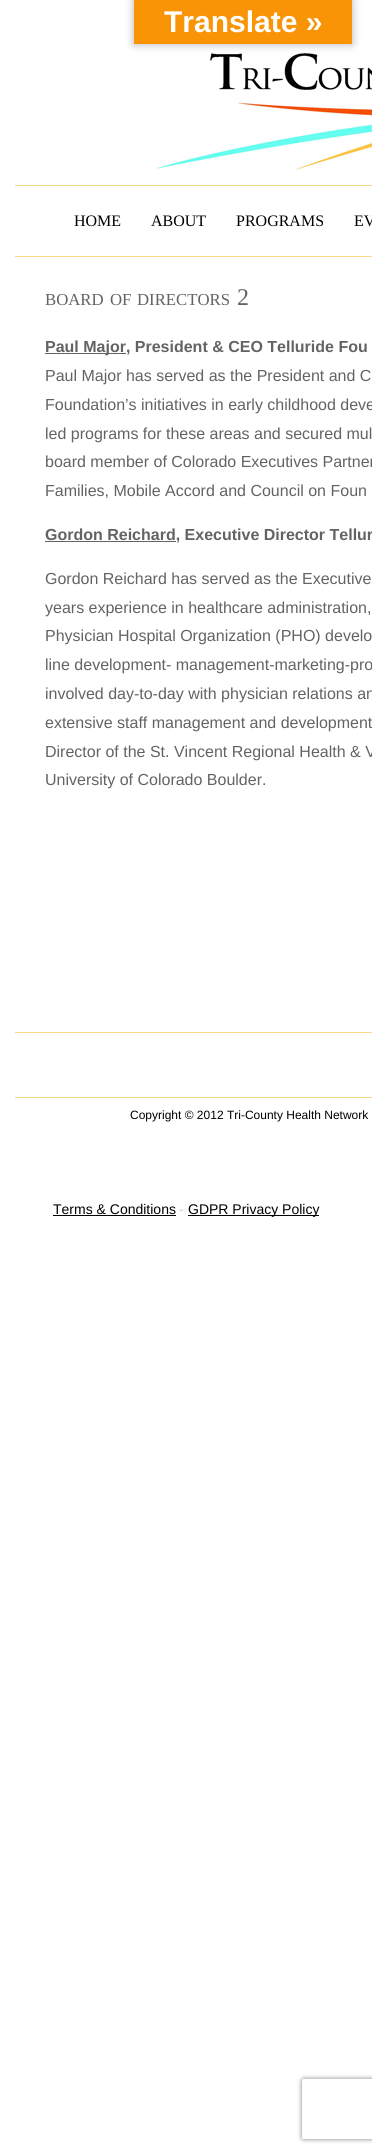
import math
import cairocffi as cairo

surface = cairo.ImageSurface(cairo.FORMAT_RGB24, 372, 2153)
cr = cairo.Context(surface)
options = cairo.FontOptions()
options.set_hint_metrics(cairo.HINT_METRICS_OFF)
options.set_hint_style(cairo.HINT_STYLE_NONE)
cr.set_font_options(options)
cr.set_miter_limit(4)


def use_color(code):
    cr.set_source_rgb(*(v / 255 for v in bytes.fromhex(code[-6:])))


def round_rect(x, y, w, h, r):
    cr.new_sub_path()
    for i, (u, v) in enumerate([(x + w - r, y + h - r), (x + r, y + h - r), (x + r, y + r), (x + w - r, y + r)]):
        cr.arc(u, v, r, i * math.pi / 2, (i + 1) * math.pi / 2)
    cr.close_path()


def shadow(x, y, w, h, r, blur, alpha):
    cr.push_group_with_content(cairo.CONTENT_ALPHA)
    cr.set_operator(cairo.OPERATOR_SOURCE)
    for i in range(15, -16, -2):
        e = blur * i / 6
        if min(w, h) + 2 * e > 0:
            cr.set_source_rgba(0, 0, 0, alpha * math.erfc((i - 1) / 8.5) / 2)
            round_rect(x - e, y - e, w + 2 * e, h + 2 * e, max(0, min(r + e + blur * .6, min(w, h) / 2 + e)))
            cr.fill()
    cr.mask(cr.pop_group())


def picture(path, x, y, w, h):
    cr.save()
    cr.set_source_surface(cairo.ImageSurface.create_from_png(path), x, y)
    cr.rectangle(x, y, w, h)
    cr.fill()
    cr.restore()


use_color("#ffffff")
cr.paint()
picture("img1.png", 156, 53, 216, 118)
use_color("#000000")
shadow(134, 0, 218, 44, 0, 4.5, 0.3)
use_color("#f89406")
cr.rectangle(134, 0, 218, 44)
cr.fill()
cr.select_font_face("Liberation Sans", cairo.FONT_SLANT_NORMAL, cairo.FONT_WEIGHT_BOLD)
cr.set_font_size(30)
use_color("#ffffff")
cr.move_to(164, 32)
cr.show_text("Translate »")
use_color("#f7d986")
cr.rectangle(15, 185, 357, 1)
cr.fill()
cr.rectangle(15, 256, 357, 1)
cr.fill()
cr.select_font_face("Liberation Serif")
cr.set_font_size(16)
use_color("#000000")
cr.move_to(74, 226)
cr.show_text("HOME")
cr.move_to(151, 226)
cr.show_text("ABOUT")
cr.move_to(236, 226)
cr.show_text("PROGRAMS")
cr.move_to(354, 226)
cr.show_text("EV")
cr.set_font_size(16.75)
use_color("#636363")
cr.move_to(45, 305)
cr.show_text("BOARD")
cr.move_to(110, 305)
cr.show_text("OF")
cr.move_to(137, 305)
cr.show_text("DIRECTORS")
cr.set_font_size(24)
cr.move_to(237, 305)
cr.show_text("2")
cr.rectangle(45, 353, 81, 1)
cr.fill()
cr.select_font_face("Liberation Sans", cairo.FONT_SLANT_NORMAL, cairo.FONT_WEIGHT_BOLD)
cr.set_font_size(16)
cr.move_to(45, 352)
cr.show_text("Paul Major, President & CEO Telluride Fou")
cr.select_font_face("Liberation Sans")
cr.move_to(45, 381)
cr.show_text("Paul Major has served as the President and C")
cr.move_to(45, 410)
cr.show_text("Foundation’s initiatives in early childhood deve")
cr.move_to(45, 439)
cr.show_text("led programs for these areas and secured mul")
cr.move_to(45, 467)
cr.show_text("board member of Colorado Executives Partner")
cr.move_to(45, 496)
cr.show_text("Families, Mobile Accord and Council on Foun")
cr.rectangle(45, 541, 131, 1)
cr.fill()
cr.select_font_face("Liberation Sans", cairo.FONT_SLANT_NORMAL, cairo.FONT_WEIGHT_BOLD)
cr.move_to(45, 540)
cr.show_text("Gordon Reichard, Executive Director Tellur")
cr.select_font_face("Liberation Sans")
cr.move_to(45, 584)
cr.show_text("Gordon Reichard has served as the Executive")
cr.move_to(45, 613)
cr.show_text("years experience in healthcare administration,")
cr.move_to(45, 641)
cr.show_text("Physician Hospital Organization (PHO) develo")
cr.move_to(45, 670)
cr.show_text("line development- management-marketing-pro")
cr.move_to(45, 699)
cr.show_text("involved day-to-day with physician relations an")
cr.move_to(45, 728)
cr.show_text("extensive staff management and development")
cr.move_to(45, 757)
cr.show_text("Director of the St. Vincent Regional Health & V")
cr.move_to(45, 785)
cr.show_text("University of Colorado Boulder.")
use_color("#f7d986")
cr.rectangle(15, 1032, 357, 1)
cr.fill()
cr.rectangle(15, 1097, 357, 1)
cr.fill()
cr.set_font_size(12)
use_color("#000000")
cr.move_to(130, 1119)
cr.show_text("Copyright © 2012 Tri-County Health Network")
cr.set_font_size(14)
cr.move_to(53, 1214)
cr.show_text("Terms & Conditions")
cr.rectangle(53, 1215, 123, 1)
cr.fill()
use_color("#cccccc")
cr.move_to(179, 1214)
cr.show_text("-")
use_color("#000000")
cr.rectangle(188, 1215, 131, 1)
cr.fill()
cr.move_to(188, 1214)
cr.show_text("GDPR Privacy Policy")
cr.save()
cr.set_fill_rule(cairo.FILL_RULE_EVEN_ODD)
cr.new_path()
cr.move_to(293, 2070)
cr.line_to(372, 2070)
cr.line_to(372, 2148)
cr.line_to(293, 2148)
cr.close_path()
cr.move_to(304, 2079)
cr.line_to(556, 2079)
cr.curve_to(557, 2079, 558, 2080, 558, 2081)
cr.line_to(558, 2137)
cr.curve_to(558, 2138, 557, 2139, 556, 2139)
cr.line_to(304, 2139)
cr.curve_to(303, 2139, 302, 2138, 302, 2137)
cr.line_to(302, 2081)
cr.curve_to(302, 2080, 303, 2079, 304, 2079)
cr.close_path()
cr.clip()
use_color("#808080")
shadow(302, 2079, 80, 60, 2, 2.5, 1)
cr.restore()
surface.write_to_png("result.png")
